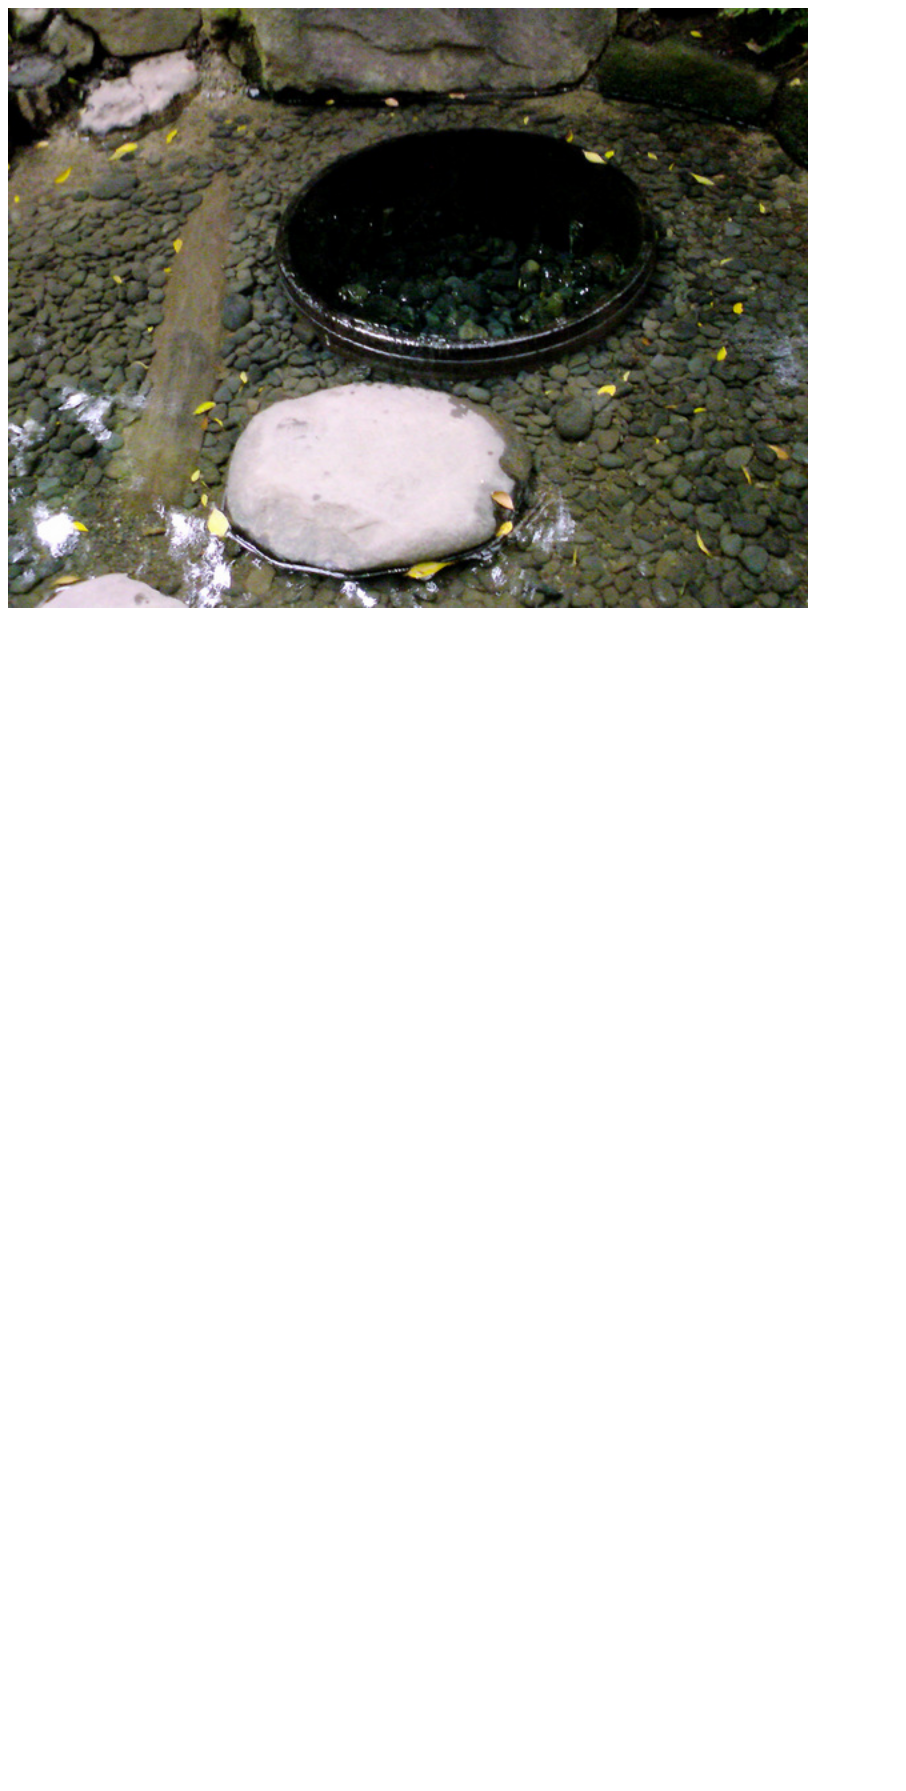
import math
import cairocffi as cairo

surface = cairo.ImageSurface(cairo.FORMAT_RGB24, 906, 1791)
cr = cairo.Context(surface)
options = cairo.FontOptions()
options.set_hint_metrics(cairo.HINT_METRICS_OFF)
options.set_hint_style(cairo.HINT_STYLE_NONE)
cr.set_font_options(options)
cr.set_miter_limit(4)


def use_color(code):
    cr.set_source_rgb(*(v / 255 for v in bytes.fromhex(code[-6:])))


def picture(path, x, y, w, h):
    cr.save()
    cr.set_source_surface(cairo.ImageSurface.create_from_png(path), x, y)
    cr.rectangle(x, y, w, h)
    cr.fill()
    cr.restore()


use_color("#ffffff")
cr.paint()
picture("img1.png", 8, 8, 800, 600)
surface.write_to_png("result.png")
